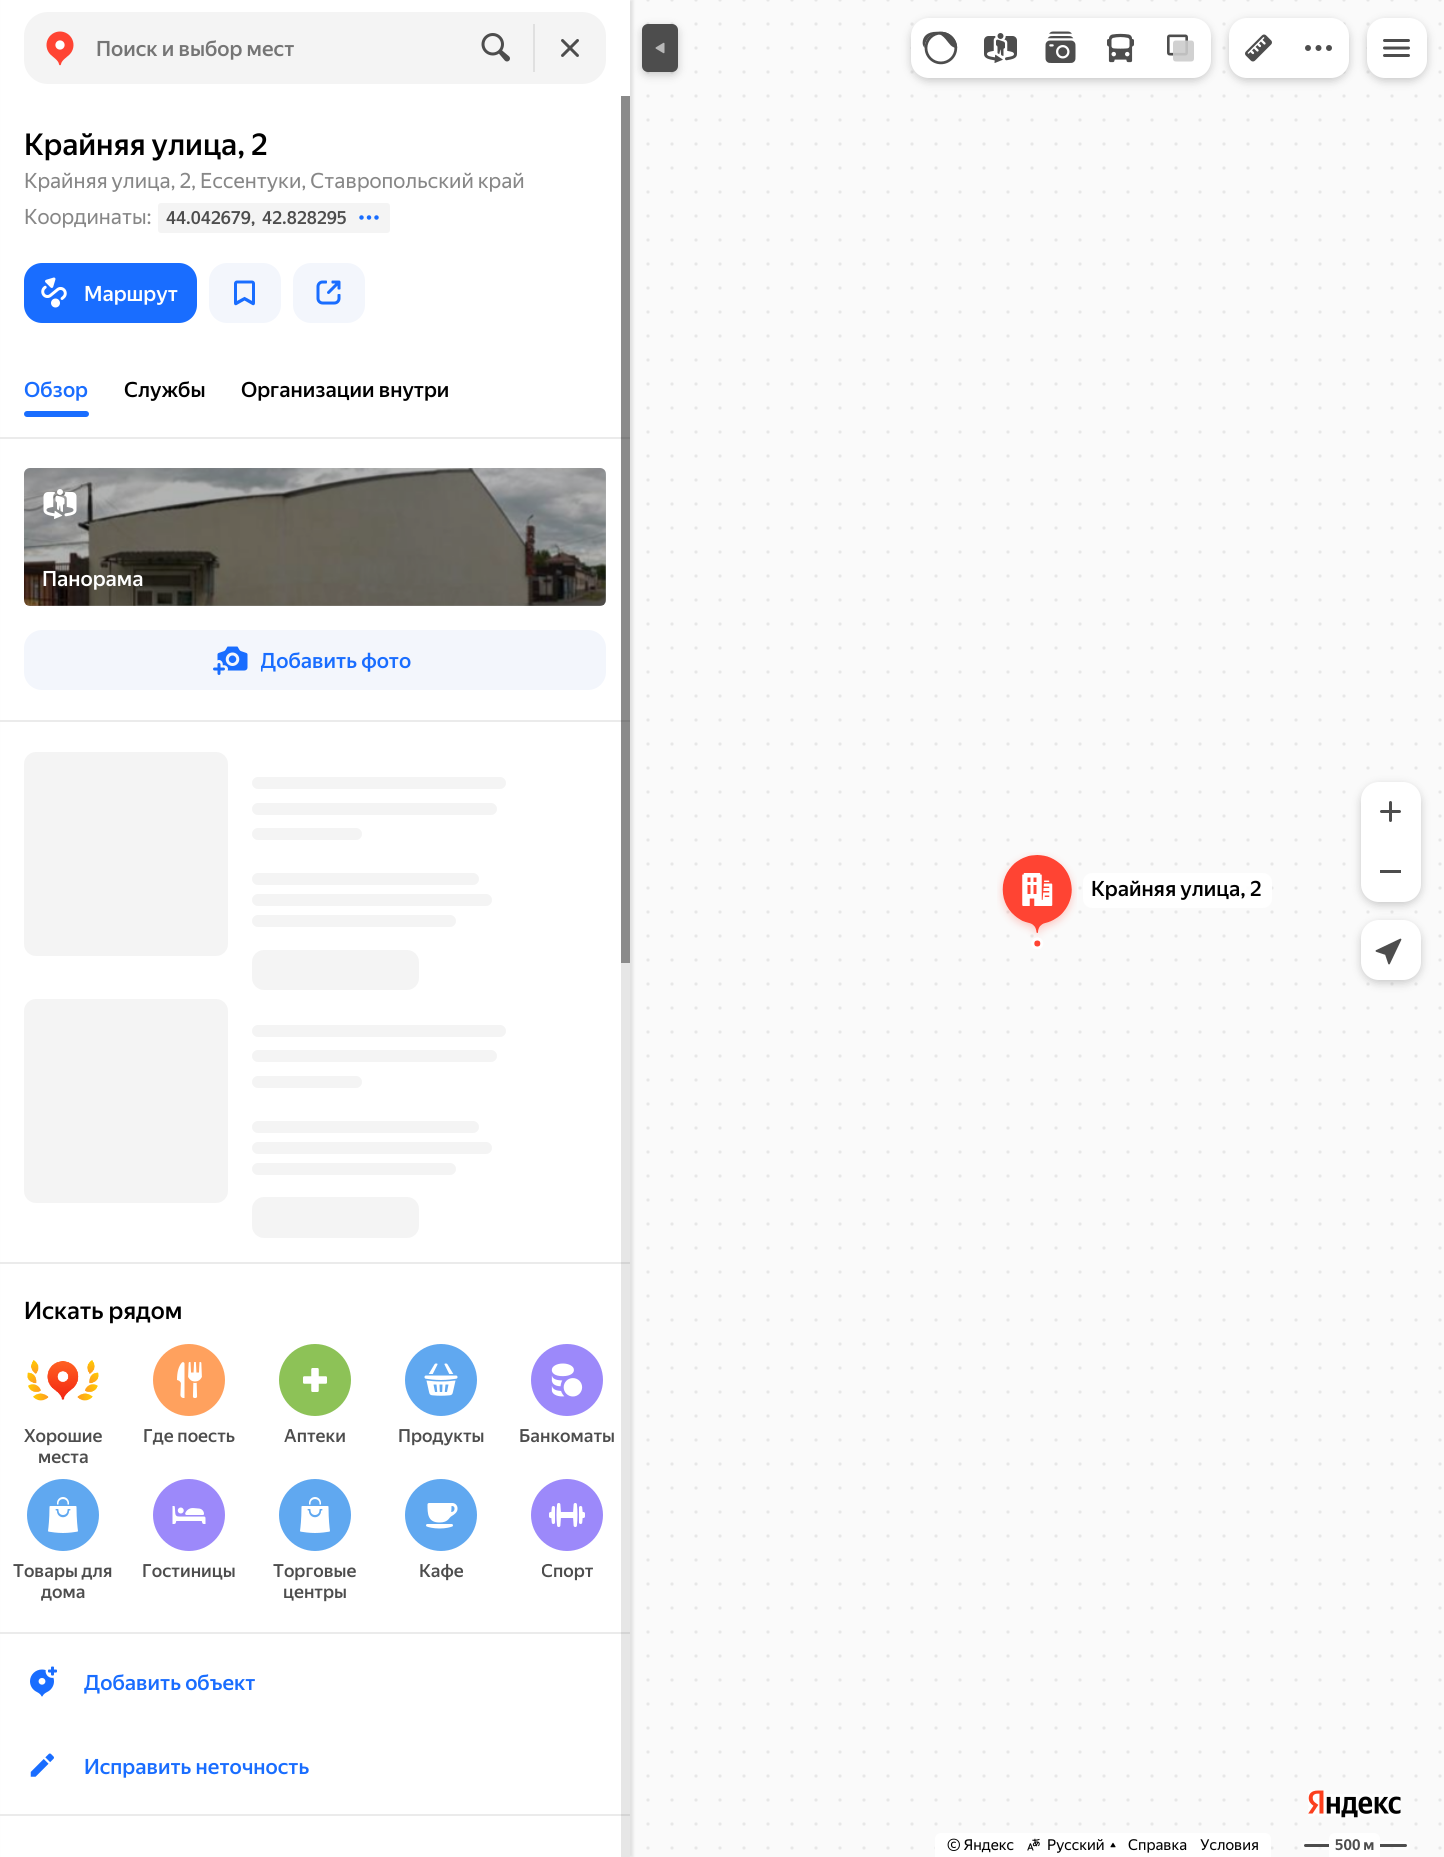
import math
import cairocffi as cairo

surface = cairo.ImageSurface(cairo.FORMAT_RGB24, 1444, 1857)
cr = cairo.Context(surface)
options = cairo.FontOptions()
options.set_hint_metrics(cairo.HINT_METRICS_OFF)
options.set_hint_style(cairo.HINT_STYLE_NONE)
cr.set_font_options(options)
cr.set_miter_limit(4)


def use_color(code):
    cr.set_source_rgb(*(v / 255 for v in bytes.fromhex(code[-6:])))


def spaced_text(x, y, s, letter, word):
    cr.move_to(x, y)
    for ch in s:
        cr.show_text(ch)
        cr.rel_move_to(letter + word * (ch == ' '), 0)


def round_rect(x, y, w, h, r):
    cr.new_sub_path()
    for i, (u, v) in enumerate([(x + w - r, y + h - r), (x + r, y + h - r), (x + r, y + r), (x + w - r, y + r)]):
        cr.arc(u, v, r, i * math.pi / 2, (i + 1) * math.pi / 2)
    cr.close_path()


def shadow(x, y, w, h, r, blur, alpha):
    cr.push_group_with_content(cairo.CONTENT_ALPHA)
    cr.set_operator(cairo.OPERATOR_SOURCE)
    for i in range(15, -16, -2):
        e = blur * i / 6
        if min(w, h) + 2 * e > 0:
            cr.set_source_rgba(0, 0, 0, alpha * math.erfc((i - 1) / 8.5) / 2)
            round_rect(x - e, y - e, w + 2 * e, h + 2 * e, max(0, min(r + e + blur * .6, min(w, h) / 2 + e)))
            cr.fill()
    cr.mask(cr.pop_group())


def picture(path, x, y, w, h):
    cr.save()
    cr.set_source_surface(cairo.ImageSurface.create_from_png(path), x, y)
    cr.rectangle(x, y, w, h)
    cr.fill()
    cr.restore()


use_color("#ffffff")
cr.paint()
picture("img1.png", 630, 0, 814, 1857)
use_color("#000000")
shadow(3, 0, 630, 1857, 0, 1.5, 0.1)
shadow(642, 27, 36, 48, 6, 4.5, 0.2)
use_color("#ffffff")
cr.rectangle(1, 0, 629, 1857)
cr.fill()
use_color("#f4f4f4")
round_rect(24, 12, 582, 72, 24)
cr.fill()
picture("img2.png", 46, 31, 28, 35)
cr.select_font_face("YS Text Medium")
cr.set_font_size(21)
use_color("#757575")
cr.move_to(96, 56)
cr.show_text("Поиск и выбор мест")
picture("img3.png", 481, 33, 29, 29)
use_color("#e0e0e0")
cr.rectangle(533, 24, 2, 48)
cr.fill()
picture("img4.png", 561, 39, 18, 18)
use_color("#000000")
shadow(911, 21, 300, 60, 18, 4.5, 0.2)
use_color("#ffffff")
cr.new_path()
cr.move_to(929, 18)
cr.line_to(971, 18)
cr.line_to(971, 78)
cr.line_to(929, 78)
cr.curve_to(919, 78, 911, 70, 911, 60)
cr.line_to(911, 36)
cr.curve_to(911, 26, 919, 18, 929, 18)
cr.close_path()
cr.fill()
picture("img5.png", 922, 31, 36, 34)
cr.rectangle(971, 18, 180, 60)
cr.fill()
picture("img6.png", 984, 33, 33, 30)
cr.new_path()
cr.move_to(1151, 18)
cr.line_to(1193, 18)
cr.curve_to(1203, 18, 1211, 26, 1211, 36)
cr.line_to(1211, 60)
cr.curve_to(1211, 70, 1203, 78, 1193, 78)
cr.line_to(1151, 78)
cr.close_path()
cr.fill()
picture("img7.png", 1167, 34, 27, 28)
picture("img8.png", 1045, 31, 31, 32)
picture("img9.png", 1107, 33, 27, 30)
use_color("#000000")
shadow(1229, 21, 120, 60, 18, 4.5, 0.2)
use_color("#ffffff")
cr.new_path()
cr.move_to(1247, 18)
cr.line_to(1289, 18)
cr.line_to(1289, 78)
cr.line_to(1247, 78)
cr.curve_to(1237, 78, 1229, 70, 1229, 60)
cr.line_to(1229, 36)
cr.curve_to(1229, 26, 1237, 18, 1247, 18)
cr.close_path()
cr.fill()
picture("img10.png", 1245, 34, 27, 28)
cr.new_path()
cr.move_to(1289, 18)
cr.line_to(1331, 18)
cr.curve_to(1341, 18, 1349, 26, 1349, 36)
cr.line_to(1349, 60)
cr.curve_to(1349, 70, 1341, 78, 1331, 78)
cr.line_to(1289, 78)
cr.close_path()
cr.fill()
picture("img11.png", 1305, 45, 27, 6)
use_color("#000000")
shadow(1367, 21, 60, 60, 18, 4.5, 0.2)
use_color("#ffffff")
round_rect(1367, 18, 60, 60, 18)
cr.fill()
picture("img12.png", 1383, 39, 27, 18)
use_color("#000000")
shadow(1361, 785, 60, 120, 18, 4.5, 0.2)
use_color("#ffffff")
cr.new_path()
cr.move_to(1379, 782)
cr.line_to(1403, 782)
cr.curve_to(1413, 782, 1421, 790, 1421, 800)
cr.line_to(1421, 842)
cr.line_to(1361, 842)
cr.line_to(1361, 800)
cr.curve_to(1361, 790, 1369, 782, 1379, 782)
cr.close_path()
cr.fill()
picture("img13.png", 1380, 801, 21, 21)
cr.new_path()
cr.move_to(1361, 842)
cr.line_to(1421, 842)
cr.line_to(1421, 884)
cr.curve_to(1421, 894, 1413, 902, 1403, 902)
cr.line_to(1379, 902)
cr.curve_to(1369, 902, 1361, 894, 1361, 884)
cr.close_path()
cr.fill()
use_color("#4d4d4d")
cr.rectangle(1380, 870, 21, 3)
cr.fill()
use_color("#000000")
shadow(1361, 923, 60, 60, 18, 4.5, 0.2)
use_color("#ffffff")
round_rect(1361, 920, 60, 60, 18)
cr.fill()
picture("img14.png", 1375, 938, 27, 27)
use_color("#4d4d4d")
round_rect(642, 24, 36, 48, 6)
cr.fill()
picture("img15.png", 655, 42, 10, 12)
cr.set_font_size(30)
use_color("#000000")
cr.move_to(24, 155)
cr.show_text("Крайняя улица, 2")
cr.select_font_face("YS Text")
cr.set_font_size(21)
use_color("#878787")
spaced_text(24, 188, "Крайняя улица, 2, Ессентуки, Ставропольский край", 0, -0.25)
cr.move_to(24, 224)
cr.show_text("Координаты:")
use_color("#f4f4f4")
round_rect(158, 203, 232, 30, 3)
cr.fill()
cr.select_font_face("YS Text Medium")
cr.set_font_size(18)
use_color("#4d4d4d")
spaced_text(166, 224, "44.042679,", 0, -1)
spaced_text(262, 224, "42.828295", 0, -1)
picture("img16.png", 359, 215, 20, 5)
use_color("#196dff")
round_rect(24, 263, 173, 60, 18)
cr.fill()
picture("img17.png", 41, 277, 26, 31)
cr.set_font_size(21)
use_color("#ffffff")
cr.move_to(84, 301)
cr.show_text("Маршрут")
use_color("#f3f6fc")
round_rect(209, 263, 72, 60, 18)
cr.fill()
picture("img18.png", 234, 280, 21, 26)
round_rect(293, 263, 72, 60, 18)
cr.fill()
picture("img19.png", 316, 280, 25, 25)
use_color("#196dff")
cr.move_to(24, 397)
cr.show_text("Обзор")
use_color("#000000")
cr.move_to(124, 397)
cr.show_text("Службы")
cr.move_to(241, 397)
cr.show_text("Организации внутри")
use_color("#196dff")
round_rect(24, 411, 65, 6, 3)
cr.fill()
use_color("#ebebeb")
cr.rectangle(0, 437, 630, 2)
cr.fill()
cr.rectangle(0, 720, 630, 2)
cr.fill()
picture("img20.png", 24, 468, 582, 138)
cr.set_source_rgba(0, 0, 0, 0.3)
round_rect(24, 468, 582, 138, 6)
cr.fill()
picture("img21.png", 43, 489, 34, 30)
use_color("#ffffff")
cr.move_to(42, 586)
cr.show_text("Панорама")
use_color("#f3f6fc")
round_rect(24, 630, 582, 60, 18)
cr.fill()
picture("img22.png", 213, 646, 35, 29)
cr.save()
cr.rectangle(261, 630, 168, 60)
cr.clip()
use_color("#196dff")
cr.move_to(260, 668)
cr.show_text("Добавить фото")
cr.restore()
use_color("#ebebeb")
cr.rectangle(0, 1262, 630, 2)
cr.fill()
gradient = cairo.LinearGradient(-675, 53, 927, 1655)
gradient.add_color_stop_rgba(0.6, 0.957, 0.957, 0.957, 1)
gradient.add_color_stop_rgba(0.78, 0.922, 0.922, 0.922, 1)
gradient.add_color_stop_rgba(0.86, 0.957, 0.957, 0.957, 1)
cr.set_source(gradient)
round_rect(24, 752, 204, 204, 12)
cr.fill()
gradient = cairo.LinearGradient(-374, 30, 1132, 1536)
gradient.add_color_stop_rgba(0.6, 0.957, 0.957, 0.957, 1)
gradient.add_color_stop_rgba(0.78, 0.922, 0.922, 0.922, 1)
gradient.add_color_stop_rgba(0.86, 0.957, 0.957, 0.957, 1)
cr.set_source(gradient)
round_rect(252, 777, 254, 12, 6)
cr.fill()
gradient = cairo.LinearGradient(-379, 56, 1127, 1562)
gradient.add_color_stop_rgba(0.6, 0.957, 0.957, 0.957, 1)
gradient.add_color_stop_rgba(0.78, 0.922, 0.922, 0.922, 1)
gradient.add_color_stop_rgba(0.86, 0.957, 0.957, 0.957, 1)
cr.set_source(gradient)
round_rect(252, 803, 245, 12, 6)
cr.fill()
gradient = cairo.LinearGradient(-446, 81, 1060, 1587)
gradient.add_color_stop_rgba(0.6, 0.957, 0.957, 0.957, 1)
gradient.add_color_stop_rgba(0.78, 0.922, 0.922, 0.922, 1)
gradient.add_color_stop_rgba(0.86, 0.957, 0.957, 0.957, 1)
cr.set_source(gradient)
round_rect(252, 828, 110, 12, 6)
cr.fill()
gradient = cairo.LinearGradient(-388, 126, 1118, 1632)
gradient.add_color_stop_rgba(0.6, 0.957, 0.957, 0.957, 1)
gradient.add_color_stop_rgba(0.78, 0.922, 0.922, 0.922, 1)
gradient.add_color_stop_rgba(0.86, 0.957, 0.957, 0.957, 1)
cr.set_source(gradient)
round_rect(252, 873, 227, 12, 6)
cr.fill()
gradient = cairo.LinearGradient(-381, 147, 1125, 1653)
gradient.add_color_stop_rgba(0.6, 0.957, 0.957, 0.957, 1)
gradient.add_color_stop_rgba(0.78, 0.922, 0.922, 0.922, 1)
gradient.add_color_stop_rgba(0.86, 0.957, 0.957, 0.957, 1)
cr.set_source(gradient)
round_rect(252, 894, 240, 12, 6)
cr.fill()
gradient = cairo.LinearGradient(-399, 168, 1107, 1674)
gradient.add_color_stop_rgba(0.6, 0.957, 0.957, 0.957, 1)
gradient.add_color_stop_rgba(0.78, 0.922, 0.922, 0.922, 1)
gradient.add_color_stop_rgba(0.86, 0.957, 0.957, 0.957, 1)
cr.set_source(gradient)
round_rect(252, 915, 204, 12, 6)
cr.fill()
gradient = cairo.LinearGradient(-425, 210, 1095, 1730)
gradient.add_color_stop_rgba(0.6, 0.957, 0.957, 0.957, 1)
gradient.add_color_stop_rgba(0.78, 0.922, 0.922, 0.922, 1)
gradient.add_color_stop_rgba(0.86, 0.957, 0.957, 0.957, 1)
cr.set_source(gradient)
round_rect(252, 950, 167, 40, 12)
cr.fill()
gradient = cairo.LinearGradient(-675, 300, 927, 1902)
gradient.add_color_stop_rgba(0.6, 0.957, 0.957, 0.957, 1)
gradient.add_color_stop_rgba(0.78, 0.922, 0.922, 0.922, 1)
gradient.add_color_stop_rgba(0.86, 0.957, 0.957, 0.957, 1)
cr.set_source(gradient)
round_rect(24, 999, 204, 204, 12)
cr.fill()
gradient = cairo.LinearGradient(-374, 278, 1132, 1784)
gradient.add_color_stop_rgba(0.6, 0.957, 0.957, 0.957, 1)
gradient.add_color_stop_rgba(0.78, 0.922, 0.922, 0.922, 1)
gradient.add_color_stop_rgba(0.86, 0.957, 0.957, 0.957, 1)
cr.set_source(gradient)
round_rect(252, 1025, 254, 12, 6)
cr.fill()
gradient = cairo.LinearGradient(-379, 303, 1127, 1809)
gradient.add_color_stop_rgba(0.6, 0.957, 0.957, 0.957, 1)
gradient.add_color_stop_rgba(0.78, 0.922, 0.922, 0.922, 1)
gradient.add_color_stop_rgba(0.86, 0.957, 0.957, 0.957, 1)
cr.set_source(gradient)
round_rect(252, 1050, 245, 12, 6)
cr.fill()
gradient = cairo.LinearGradient(-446, 329, 1060, 1835)
gradient.add_color_stop_rgba(0.6, 0.957, 0.957, 0.957, 1)
gradient.add_color_stop_rgba(0.78, 0.922, 0.922, 0.922, 1)
gradient.add_color_stop_rgba(0.86, 0.957, 0.957, 0.957, 1)
cr.set_source(gradient)
round_rect(252, 1076, 110, 12, 6)
cr.fill()
gradient = cairo.LinearGradient(-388, 374, 1118, 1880)
gradient.add_color_stop_rgba(0.6, 0.957, 0.957, 0.957, 1)
gradient.add_color_stop_rgba(0.78, 0.922, 0.922, 0.922, 1)
gradient.add_color_stop_rgba(0.86, 0.957, 0.957, 0.957, 1)
cr.set_source(gradient)
round_rect(252, 1121, 227, 12, 6)
cr.fill()
gradient = cairo.LinearGradient(-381, 395, 1125, 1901)
gradient.add_color_stop_rgba(0.6, 0.957, 0.957, 0.957, 1)
gradient.add_color_stop_rgba(0.78, 0.922, 0.922, 0.922, 1)
gradient.add_color_stop_rgba(0.86, 0.957, 0.957, 0.957, 1)
cr.set_source(gradient)
round_rect(252, 1142, 240, 12, 6)
cr.fill()
gradient = cairo.LinearGradient(-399, 416, 1107, 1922)
gradient.add_color_stop_rgba(0.6, 0.957, 0.957, 0.957, 1)
gradient.add_color_stop_rgba(0.78, 0.922, 0.922, 0.922, 1)
gradient.add_color_stop_rgba(0.86, 0.957, 0.957, 0.957, 1)
cr.set_source(gradient)
round_rect(252, 1163, 204, 12, 6)
cr.fill()
gradient = cairo.LinearGradient(-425, 457, 1095, 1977)
gradient.add_color_stop_rgba(0.6, 0.957, 0.957, 0.957, 1)
gradient.add_color_stop_rgba(0.78, 0.922, 0.922, 0.922, 1)
gradient.add_color_stop_rgba(0.86, 0.957, 0.957, 0.957, 1)
cr.set_source(gradient)
round_rect(252, 1197, 167, 41, 12)
cr.fill()
use_color("#ebebeb")
cr.rectangle(0, 1632, 630, 2)
cr.fill()
cr.set_font_size(24)
use_color("#000000")
cr.move_to(24, 1319)
cr.show_text("Искать рядом")
picture("img23.png", 27, 1360, 72, 41)
cr.set_font_size(18)
use_color("#4d4d4d")
cr.move_to(24, 1442)
cr.show_text("Хорошие")
cr.move_to(38, 1463)
cr.show_text("места")
use_color("#ffa15e")
cr.new_path()
cr.arc(189, 1380, 36, 0, 2 * math.pi)
cr.fill()
picture("img24.png", 177, 1362, 25, 36)
use_color("#4d4d4d")
cr.move_to(143, 1442)
cr.show_text("Где поесть")
use_color("#8dc257")
cr.new_path()
cr.arc(315, 1380, 36, 0, 2 * math.pi)
cr.fill()
picture("img25.png", 303, 1368, 24, 24)
use_color("#4d4d4d")
cr.move_to(284, 1442)
cr.show_text("Аптеки")
use_color("#60a8f0")
cr.new_path()
cr.arc(441, 1380, 36, 0, 2 * math.pi)
cr.fill()
picture("img26.png", 424, 1363, 34, 33)
use_color("#4d4d4d")
cr.move_to(398, 1442)
cr.show_text("Продукты")
use_color("#9c89fa")
cr.new_path()
cr.arc(567, 1380, 36, 0, 2 * math.pi)
cr.fill()
picture("img27.png", 551, 1363, 32, 34)
use_color("#4d4d4d")
cr.move_to(519, 1442)
cr.show_text("Банкоматы")
use_color("#60a8f0")
cr.new_path()
cr.arc(63, 1515, 36, 0, 2 * math.pi)
cr.fill()
picture("img28.png", 48, 1497, 30, 36)
use_color("#4d4d4d")
cr.move_to(13, 1577)
cr.show_text("Товары для")
cr.move_to(41, 1598)
cr.show_text("дома")
use_color("#9c89fa")
cr.new_path()
cr.arc(189, 1515, 36, 0, 2 * math.pi)
cr.fill()
picture("img29.png", 172, 1506, 34, 18)
use_color("#4d4d4d")
cr.move_to(142, 1577)
cr.show_text("Гостиницы")
use_color("#60a8f0")
cr.new_path()
cr.arc(315, 1515, 36, 0, 2 * math.pi)
cr.fill()
picture("img28.png", 300, 1497, 30, 36)
use_color("#4d4d4d")
cr.move_to(273, 1577)
cr.show_text("Торговые")
cr.move_to(283, 1598)
cr.show_text("центры")
use_color("#60a8f0")
cr.new_path()
cr.arc(441, 1515, 36, 0, 2 * math.pi)
cr.fill()
picture("img30.png", 426, 1503, 32, 26)
use_color("#4d4d4d")
cr.move_to(419, 1577)
cr.show_text("Кафе")
use_color("#9c89fa")
cr.new_path()
cr.arc(567, 1515, 36, 0, 2 * math.pi)
cr.fill()
picture("img31.png", 549, 1503, 36, 24)
cr.save()
cr.rectangle(542, 1560, 51, 21)
cr.clip()
use_color("#4d4d4d")
cr.move_to(541, 1577)
cr.show_text("Спорт")
cr.restore()
use_color("#ebebeb")
cr.rectangle(0, 1814, 630, 2)
cr.fill()
picture("img32.png", 30, 1666, 27, 31)
cr.set_font_size(21)
use_color("#196dff")
cr.move_to(84, 1690)
cr.show_text("Добавить объект")
picture("img33.png", 30, 1753, 24, 24)
cr.move_to(84, 1774)
cr.show_text("Исправить неточность")
cr.set_source_rgba(0, 0, 0, 0.1)
cr.rectangle(621, 96, 9, 1761)
cr.fill()
cr.set_source_rgba(0, 0, 0, 0.4)
cr.rectangle(621, 96, 9, 867)
cr.fill()
picture("img34.png", 1308, 1790, 93, 28)
use_color("#ffffff")
cr.new_path()
cr.move_to(941, 1833)
cr.line_to(1265, 1833)
cr.curve_to(1268.5, 1833, 1271, 1835.5, 1271, 1839)
cr.line_to(1271, 1857)
cr.line_to(935, 1857)
cr.line_to(935, 1839)
cr.curve_to(935, 1835.5, 937.5, 1833, 941, 1833)
cr.close_path()
cr.fill()
cr.select_font_face("YS Text")
cr.set_font_size(15)
use_color("#000000")
cr.move_to(947, 1850)
cr.show_text("© Яндекс")
picture("img35.png", 1027, 1838, 13, 13)
cr.move_to(1047, 1850)
cr.show_text("Русский")
picture("img36.png", 1110, 1842, 6, 6)
cr.move_to(1128, 1850)
cr.show_text("Справка")
cr.move_to(1200, 1850)
cr.show_text("Условия")
cr.set_source_rgba(1, 1, 1, 0.6)
round_rect(1301, 1841, 109, 9, 4.5)
cr.fill()
use_color("#4d4d4d")
round_rect(1304, 1844, 103, 3, 1.5)
cr.fill()
use_color("#ffffff")
cr.new_path()
cr.move_to(1335, 1833)
cr.line_to(1374, 1833)
cr.curve_to(1377.5, 1833, 1380, 1835.5, 1380, 1839)
cr.line_to(1380, 1857)
cr.line_to(1329, 1857)
cr.line_to(1329, 1839)
cr.curve_to(1329, 1835.5, 1331.5, 1833, 1335, 1833)
cr.close_path()
cr.fill()
cr.select_font_face("YS Text", cairo.FONT_SLANT_NORMAL, cairo.FONT_WEIGHT_BOLD)
use_color("#4d4d4d")
cr.move_to(1335, 1850)
cr.show_text("500 м")
picture("img37.png", 997, 852, 80, 97)
picture("img38.png", 1022, 873, 31, 33)
cr.set_source_rgba(1, 1, 1, 0.9)
round_rect(1083, 873, 189, 35, 9)
cr.fill()
cr.select_font_face("YS Text Medium")
cr.set_font_size(21)
use_color("#000000")
cr.move_to(1091, 896)
cr.show_text("Крайняя улица, 2")
surface.write_to_png("result.png")
